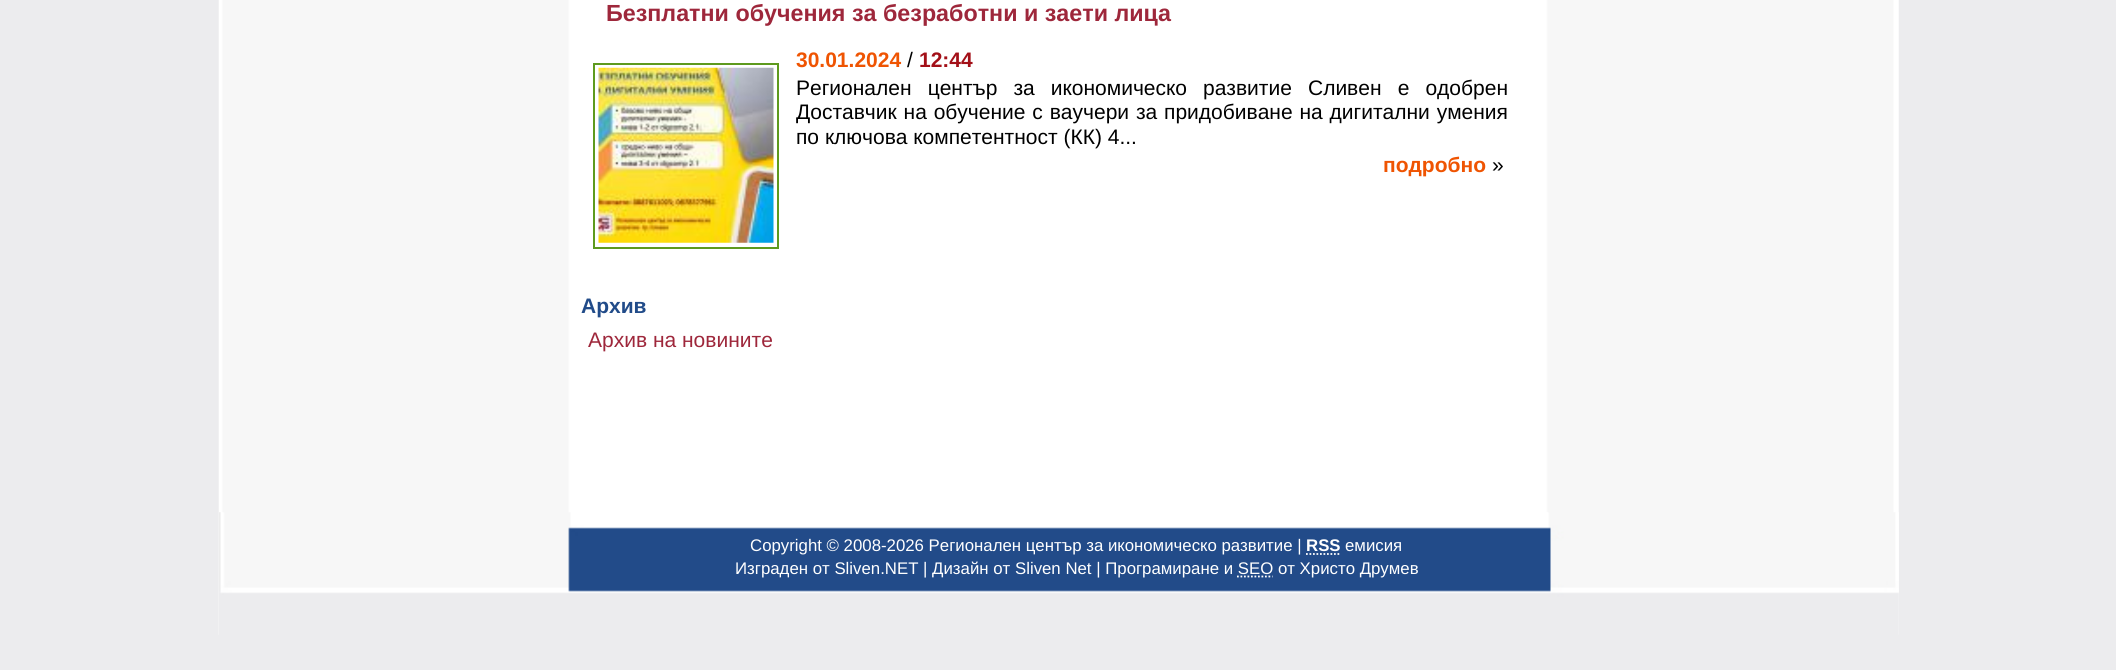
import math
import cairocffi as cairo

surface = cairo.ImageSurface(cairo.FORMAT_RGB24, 2116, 670)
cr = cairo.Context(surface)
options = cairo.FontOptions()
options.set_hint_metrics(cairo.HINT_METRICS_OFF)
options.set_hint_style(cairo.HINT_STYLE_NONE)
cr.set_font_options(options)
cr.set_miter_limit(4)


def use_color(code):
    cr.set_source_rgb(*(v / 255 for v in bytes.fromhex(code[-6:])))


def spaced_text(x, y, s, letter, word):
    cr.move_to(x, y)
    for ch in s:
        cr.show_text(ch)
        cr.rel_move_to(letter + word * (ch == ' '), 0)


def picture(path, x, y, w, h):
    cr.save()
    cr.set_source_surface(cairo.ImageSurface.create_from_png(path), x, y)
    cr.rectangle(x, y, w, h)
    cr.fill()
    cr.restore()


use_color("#ececee")
cr.paint()
picture("img1.png", 218, 0, 1681, 635)
cr.select_font_face("Liberation Sans", cairo.FONT_SLANT_NORMAL, cairo.FONT_WEIGHT_BOLD)
cr.set_font_size(23.3)
use_color("#9e273b")
cr.move_to(606, 21)
cr.show_text("Безплатни обучения за безработни и заети лица")
cr.set_font_size(21)
use_color("#ef5402")
cr.move_to(796, 67)
cr.show_text("30.01.2024")
cr.select_font_face("Liberation Sans")
use_color("#000000")
cr.move_to(907, 67)
cr.show_text("/")
cr.select_font_face("Liberation Sans", cairo.FONT_SLANT_NORMAL, cairo.FONT_WEIGHT_BOLD)
use_color("#a31018")
cr.move_to(919, 67)
cr.show_text("12:44")
cr.rectangle(594, 64, 184, 184)
use_color("#5e9a1e")
cr.stroke()
picture("img2.png", 598, 67, 176, 176)
cr.select_font_face("Liberation Sans")
use_color("#000000")
spaced_text(796, 95, "Регионален център за икономическо развитие Сливен е одобрен", 0, 10.25)
spaced_text(796, 119, "Доставчик на обучение с ваучери за придобиване на дигитални умения", 0, 1)
cr.move_to(796, 144)
cr.show_text("по ключова компетентност (КК) 4...")
cr.select_font_face("Liberation Sans", cairo.FONT_SLANT_NORMAL, cairo.FONT_WEIGHT_BOLD)
use_color("#ef5402")
cr.move_to(1383, 172)
cr.show_text("подробно")
cr.select_font_face("Liberation Sans")
use_color("#000000")
cr.move_to(1492, 172)
cr.show_text("»")
cr.select_font_face("Liberation Sans", cairo.FONT_SLANT_NORMAL, cairo.FONT_WEIGHT_BOLD)
use_color("#214b89")
cr.move_to(581, 313)
cr.show_text("Архив")
cr.select_font_face("Liberation Sans")
use_color("#9e273b")
cr.move_to(588, 347)
cr.show_text("Архив на новините")
picture("img3.png", 219, 512, 1680, 123)
cr.set_font_size(16.8)
use_color("#ffffff")
cr.move_to(750, 551)
cr.show_text("Copyright © 2008-2026 Регионален център за икономическо развитие |")
cr.select_font_face("Liberation Sans", cairo.FONT_SLANT_NORMAL, cairo.FONT_WEIGHT_BOLD)
cr.move_to(1306, 551)
cr.show_text("RSS")
cr.new_path()
cr.move_to(1306, 554)
cr.line_to(1340.5, 554)
cr.set_line_width(1.8)
cr.set_dash([1.75, 1.75])
cr.stroke()
cr.select_font_face("Liberation Sans")
cr.move_to(1345, 551)
cr.show_text("емисия")
cr.move_to(735, 574)
cr.show_text("Изграден от Sliven.NET | Дизайн от Sliven Net | Програмиране и SEO от Христо Друмев")
cr.new_path()
cr.move_to(1237, 576.5)
cr.line_to(1272.5, 576.5)
cr.stroke()
surface.write_to_png("result.png")
